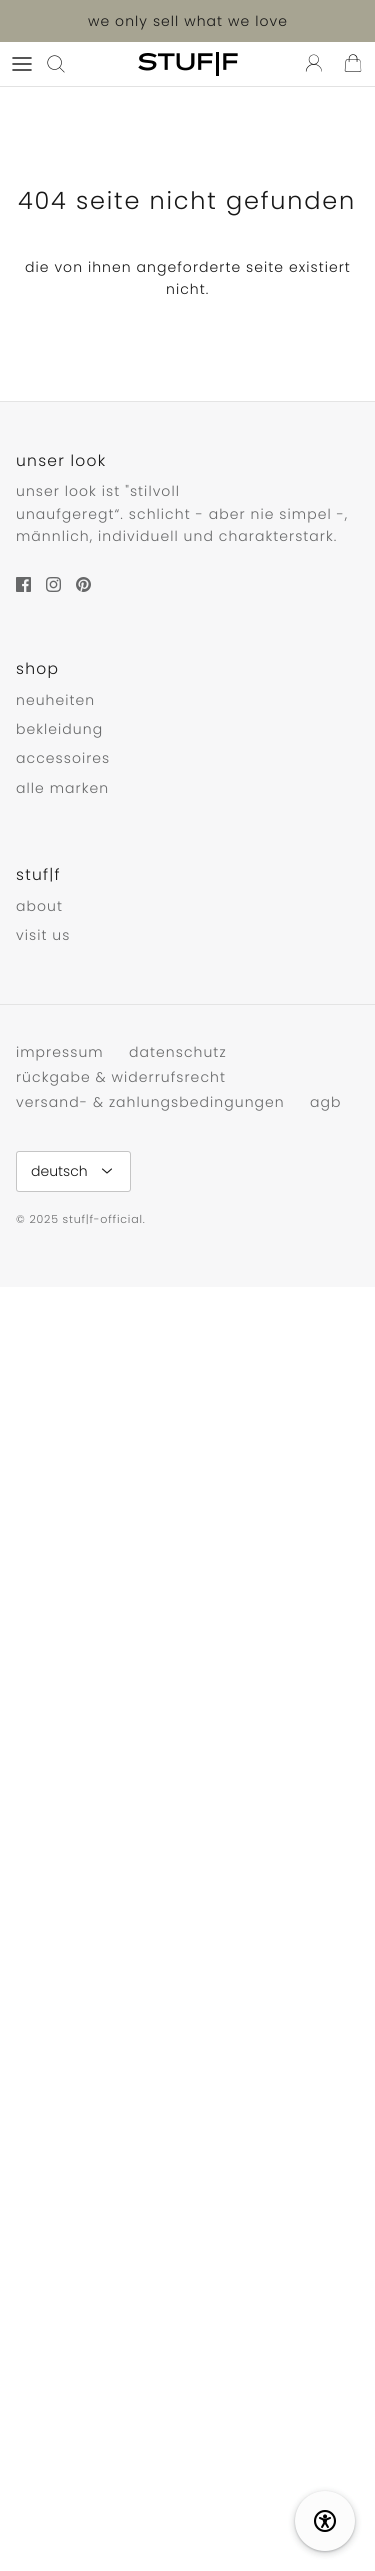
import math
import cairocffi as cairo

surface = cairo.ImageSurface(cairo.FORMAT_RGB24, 375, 2571)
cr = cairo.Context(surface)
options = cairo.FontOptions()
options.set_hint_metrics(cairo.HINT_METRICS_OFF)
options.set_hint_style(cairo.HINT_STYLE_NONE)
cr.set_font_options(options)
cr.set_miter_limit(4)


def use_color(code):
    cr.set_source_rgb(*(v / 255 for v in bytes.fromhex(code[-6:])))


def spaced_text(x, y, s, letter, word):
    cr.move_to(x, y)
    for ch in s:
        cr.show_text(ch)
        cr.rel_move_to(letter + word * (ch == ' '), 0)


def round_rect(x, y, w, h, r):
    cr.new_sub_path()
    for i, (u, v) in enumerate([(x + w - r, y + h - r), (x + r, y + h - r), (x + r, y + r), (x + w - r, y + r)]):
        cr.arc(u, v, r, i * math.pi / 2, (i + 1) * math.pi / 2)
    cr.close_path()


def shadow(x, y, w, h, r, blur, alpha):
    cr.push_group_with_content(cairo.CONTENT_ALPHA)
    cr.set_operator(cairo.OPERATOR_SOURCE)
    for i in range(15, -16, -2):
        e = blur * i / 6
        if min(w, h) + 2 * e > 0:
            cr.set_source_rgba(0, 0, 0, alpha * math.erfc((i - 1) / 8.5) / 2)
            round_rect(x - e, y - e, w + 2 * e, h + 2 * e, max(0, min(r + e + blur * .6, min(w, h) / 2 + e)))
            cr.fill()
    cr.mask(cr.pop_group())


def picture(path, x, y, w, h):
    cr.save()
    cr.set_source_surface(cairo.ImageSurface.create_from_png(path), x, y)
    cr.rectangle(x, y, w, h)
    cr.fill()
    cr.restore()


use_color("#ffffff")
cr.paint()
use_color("#a7a492")
cr.rectangle(0, 0, 375, 42)
cr.fill()
cr.select_font_face("Poppins Light")
cr.set_font_size(14)
use_color("#171717")
spaced_text(88, 26, "we only sell what we love", 1.05, 0)
use_color("#e2e2e2")
cr.rectangle(0, 86, 375, 1)
cr.fill()
picture("img1.png", 12, 57, 20, 14)
picture("img2.png", 47, 55, 18, 18)
picture("img3.png", 138, 52, 100, 24)
picture("img4.png", 305, 54, 17, 18)
picture("img5.png", 344, 54, 18, 18)
cr.set_font_size(24)
use_color("#171717")
spaced_text(18, 209, "404 seite nicht gefunden", 1.8, 0)
cr.set_font_size(14)
spaced_text(25, 272, "die von ihnen angeforderte seite existiert", 1.05, 0)
spaced_text(166, 294, "nicht.", 1.05, 0)
use_color("#f7f7f8")
cr.rectangle(0, 402, 375, 885)
cr.fill()
use_color("#e4e4e4")
cr.rectangle(0, 401, 375, 1)
cr.fill()
cr.set_font_size(15.5)
use_color("#171717")
spaced_text(16, 466, "unser look", 1.25, 0)
cr.set_font_size(14)
use_color("#676869")
spaced_text(16, 496, "unser look ist \"stilvoll", 1.05, 0)
spaced_text(16, 519, "unaufgeregt“. schlicht - aber nie simpel -,", 1.05, 0)
spaced_text(16, 541, "männlich, individuell und charakterstark.", 1.05, 0)
picture("img6.png", 16, 577, 15, 15)
picture("img7.png", 46, 577, 15, 15)
picture("img8.png", 76, 577, 15, 15)
cr.set_font_size(15.5)
use_color("#171717")
spaced_text(16, 674, "shop", 1.25, 0)
cr.set_font_size(14)
use_color("#676869")
spaced_text(16, 705, "neuheiten", 1.05, 0)
spaced_text(16, 734, "bekleidung", 1.05, 0)
spaced_text(16, 763, "accessoires", 1.05, 0)
spaced_text(16, 793, "alle marken", 1.05, 0)
cr.set_font_size(15.5)
use_color("#171717")
spaced_text(16, 880, "stuf|f", 1.25, 0)
cr.set_font_size(14)
use_color("#676869")
spaced_text(16, 911, "about", 1.05, 0)
spaced_text(16, 940, "visit us", 1.05, 0)
use_color("#e4e4e4")
cr.rectangle(0, 1004, 375, 1)
cr.fill()
use_color("#676869")
spaced_text(16, 1057, "impressum", 1.05, 0)
spaced_text(129, 1057, "datenschutz", 1.05, 0)
spaced_text(16, 1082, "rückgabe & widerrufsrecht", 1.05, 0)
spaced_text(16, 1107, "versand- & zahlungsbedingungen", 1.05, 0)
spaced_text(310, 1107, "agb", 1.05, 0)
use_color("#ffffff")
round_rect(16.5, 1151.5, 114, 40, 2.5)
cr.fill_preserve()
use_color("#c5c5c5")
cr.set_line_width(1)
cr.stroke()
use_color("#171717")
cr.move_to(31, 1176)
cr.show_text("deutsch")
cr.new_path()
cr.move_to(102.5, 1169)
cr.line_to(107, 1173)
cr.line_to(111.5, 1169)
cr.set_line_width(1.1)
cr.set_line_cap(cairo.LINE_CAP_ROUND)
cr.set_line_join(cairo.LINE_JOIN_ROUND)
cr.stroke()
cr.set_font_size(11)
use_color("#676869")
spaced_text(16, 1223, "© 2025 stuf|f-official.", 0.8, 0)
use_color("#3c4043")
shadow(293, 2491, 64, 64, 32, 3, 0.15)
shadow(295, 2492, 60, 60, 30, 1, 0.3)
use_color("#fcfcfc")
cr.arc(325, 2521, 30, 0, 2 * math.pi)
cr.fill()
picture("img9.png", 314, 2510, 22, 22)
surface.write_to_png("result.png")
